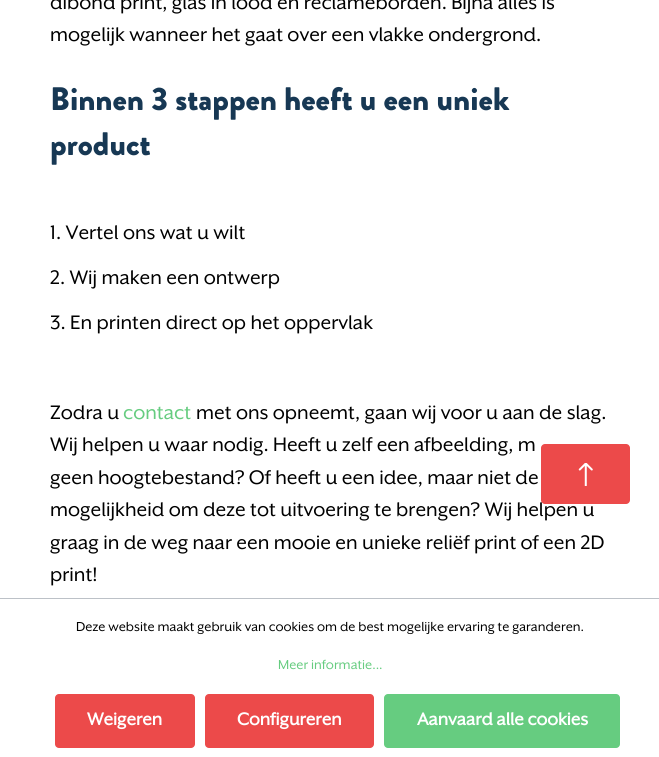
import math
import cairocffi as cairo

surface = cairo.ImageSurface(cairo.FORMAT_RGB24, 659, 757)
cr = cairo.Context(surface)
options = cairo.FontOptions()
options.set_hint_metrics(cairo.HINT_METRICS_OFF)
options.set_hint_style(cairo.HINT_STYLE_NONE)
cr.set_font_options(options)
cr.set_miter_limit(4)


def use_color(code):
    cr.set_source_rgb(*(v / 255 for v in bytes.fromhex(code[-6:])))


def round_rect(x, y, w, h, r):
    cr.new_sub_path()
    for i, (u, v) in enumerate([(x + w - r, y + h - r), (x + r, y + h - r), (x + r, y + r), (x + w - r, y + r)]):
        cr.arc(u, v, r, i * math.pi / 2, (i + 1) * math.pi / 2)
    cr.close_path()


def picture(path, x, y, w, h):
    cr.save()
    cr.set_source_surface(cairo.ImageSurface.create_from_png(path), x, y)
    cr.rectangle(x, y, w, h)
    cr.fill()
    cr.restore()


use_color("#ffffff")
cr.paint()
cr.select_font_face("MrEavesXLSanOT")
cr.set_font_size(22.5)
use_color("#000000")
cr.move_to(50, 9)
cr.show_text("dibond print, glas in lood en reclameborden. Bijna alles is")
cr.move_to(50, 41)
cr.show_text("mogelijk wanneer het gaat over een vlakke ondergrond.")
cr.select_font_face("Brandon Grotesque Black")
cr.set_font_size(32.5)
use_color("#173854")
cr.move_to(50, 110)
cr.show_text("Binnen 3 stappen heeft u een uniek")
cr.move_to(50, 155)
cr.show_text("product")
cr.select_font_face("MrEavesXLSanOT")
cr.set_font_size(22.5)
use_color("#000000")
cr.move_to(50, 239)
cr.show_text("1. Vertel ons wat u wilt")
cr.move_to(50, 284)
cr.show_text("2. Wij maken een ontwerp")
cr.move_to(50, 329)
cr.show_text("3. En printen direct op het oppervlak")
cr.move_to(50, 419)
cr.show_text("Zodra u")
use_color("#66cc80")
cr.move_to(123, 419)
cr.show_text("contact")
use_color("#000000")
cr.move_to(196, 419)
cr.show_text("met ons opneemt, gaan wij voor u aan de slag.")
cr.move_to(50, 451)
cr.show_text("Wij helpen u waar nodig. Heeft u zelf een afbeelding, m")
cr.move_to(50, 484)
cr.show_text("geen hoogtebestand? Of heeft u een idee, maar niet de")
cr.move_to(50, 516)
cr.show_text("mogelijkheid om deze tot uitvoering te brengen? Wij helpen u")
cr.move_to(50, 549)
cr.show_text("graag in de weg naar een mooie en unieke reliëf print of een 2D")
cr.move_to(50, 581)
cr.show_text("print!")
use_color("#ec4a4a")
round_rect(541, 444, 89, 60, 4)
cr.fill()
picture("img1.png", 578, 463, 15, 23)
use_color("#bcc1c7")
cr.rectangle(0, 598, 659, 1)
cr.fill()
cr.set_font_size(15)
use_color("#000000")
cr.move_to(76, 631)
cr.show_text("Deze website maakt gebruik van cookies om de best mogelijke ervaring te garanderen.")
use_color("#66cc80")
cr.move_to(278, 669)
cr.show_text("Meer informatie...")
use_color("#ec4a4a")
round_rect(55, 694, 140, 54, 4)
cr.fill()
cr.select_font_face("MrEavesXLSanOT", cairo.FONT_SLANT_NORMAL, cairo.FONT_WEIGHT_BOLD)
cr.set_font_size(20)
use_color("#ffffff")
cr.move_to(87, 725)
cr.show_text("Weigeren")
use_color("#ec4a4a")
round_rect(205, 694, 169, 54, 4)
cr.fill()
use_color("#ffffff")
cr.move_to(237, 725)
cr.show_text("Configureren")
use_color("#66cc80")
round_rect(384, 694, 236, 54, 4)
cr.fill()
use_color("#ffffff")
cr.move_to(417, 725)
cr.show_text("Aanvaard alle cookies")
surface.write_to_png("result.png")
